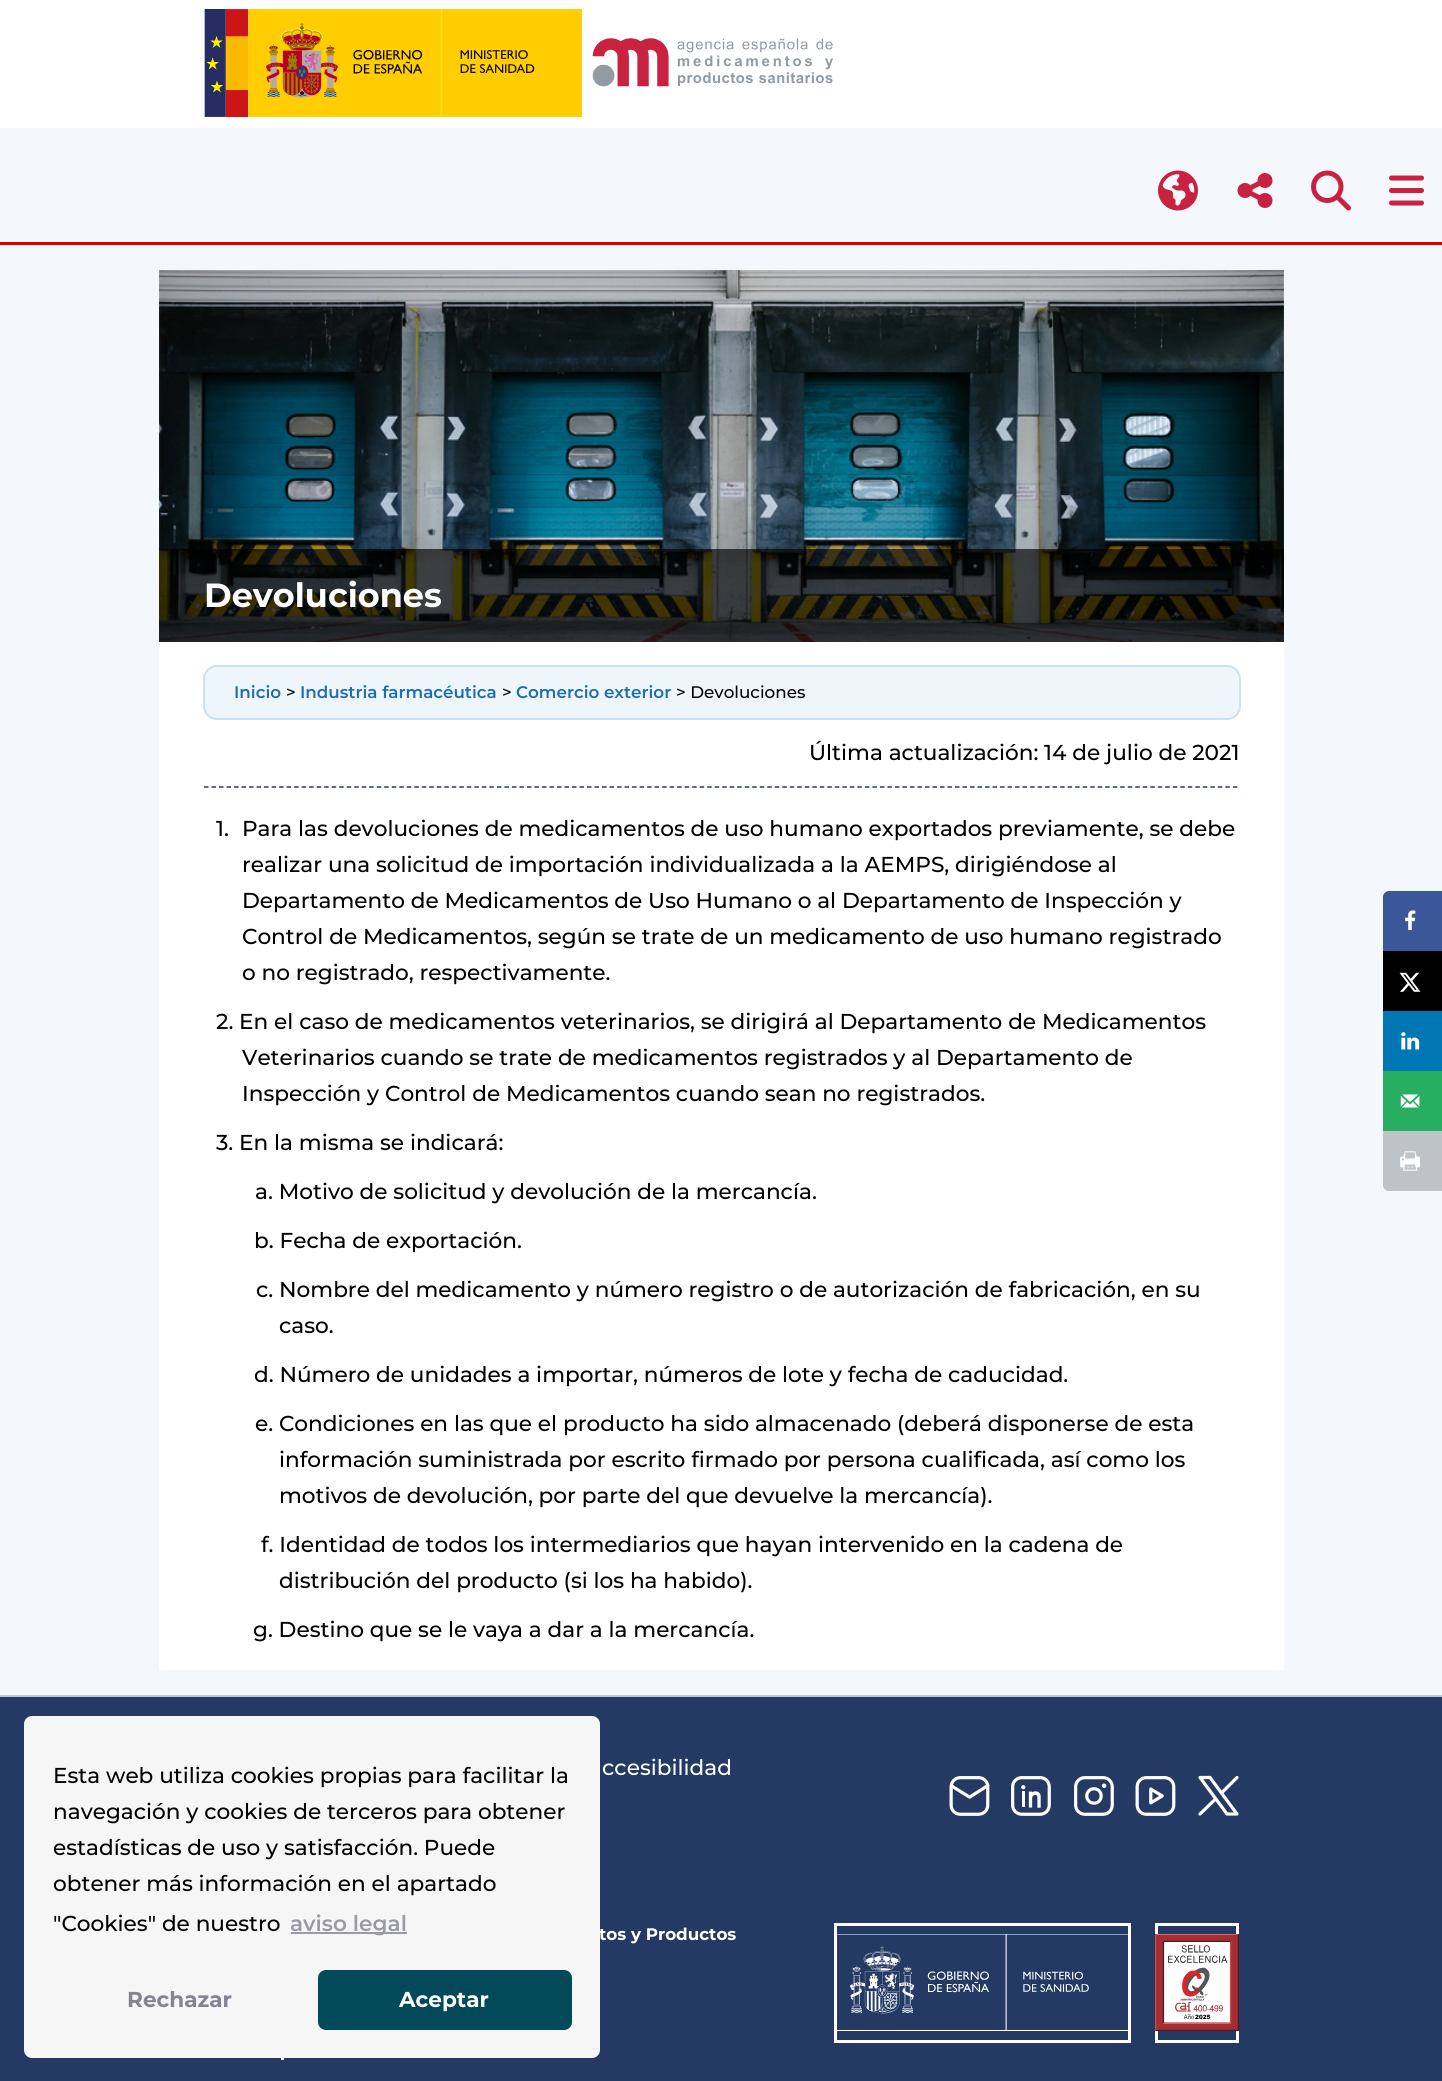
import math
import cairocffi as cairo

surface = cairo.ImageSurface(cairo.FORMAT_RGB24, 1442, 2081)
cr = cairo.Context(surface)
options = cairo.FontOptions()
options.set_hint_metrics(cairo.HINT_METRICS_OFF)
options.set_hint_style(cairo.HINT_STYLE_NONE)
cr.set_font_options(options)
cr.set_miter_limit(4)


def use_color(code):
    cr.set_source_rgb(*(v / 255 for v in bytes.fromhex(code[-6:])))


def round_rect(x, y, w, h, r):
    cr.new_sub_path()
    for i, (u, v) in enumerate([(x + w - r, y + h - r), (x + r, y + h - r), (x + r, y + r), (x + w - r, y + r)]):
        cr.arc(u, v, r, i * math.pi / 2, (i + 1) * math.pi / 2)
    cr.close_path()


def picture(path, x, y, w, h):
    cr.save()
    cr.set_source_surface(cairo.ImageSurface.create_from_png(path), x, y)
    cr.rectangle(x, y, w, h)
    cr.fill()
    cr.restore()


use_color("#f4f7fc")
cr.paint()
use_color("#ffffff")
cr.rectangle(0, 0, 1442, 128)
cr.fill()
picture("img1.png", 204, 9, 629, 108)
use_color("#d90001")
cr.rectangle(0, 242, 1442, 3)
cr.fill()
picture("img2.png", 1158, 170, 40, 41)
picture("img3.png", 1237, 173, 36, 35)
picture("img4.png", 1311, 170, 40, 41)
picture("img5.png", 1389, 175, 35, 31)
cr.rectangle(170.5, 281.5, 1102, 1377)
use_color("#ffffff")
cr.set_line_width(23)
cr.stroke()
cr.rectangle(182, 642, 1079, 1005)
cr.fill()
picture("img6.png", 159, 270, 1125, 372)
cr.set_source_rgba(0, 0, 0, 0.65)
cr.rectangle(159, 549, 1125, 93)
cr.fill()
cr.select_font_face("Montserrat", cairo.FONT_SLANT_NORMAL, cairo.FONT_WEIGHT_BOLD)
cr.set_font_size(33.5)
use_color("#ffffff")
cr.move_to(204, 607)
cr.show_text("Devoluciones")
use_color("#eef6fc")
round_rect(204, 666, 1035, 53, 12)
cr.fill()
round_rect(204, 666, 1036, 53, 13)
use_color("#c7e3f5")
cr.set_line_width(2)
cr.stroke()
cr.select_font_face("Montserrat SemiBold")
cr.set_font_size(16.75)
use_color("#1e6db1")
cr.move_to(234, 698)
cr.show_text("Inicio")
cr.select_font_face("Montserrat Medium")
use_color("#000000")
cr.move_to(286, 698)
cr.show_text(">")
cr.select_font_face("Montserrat SemiBold")
use_color("#1e6db1")
cr.move_to(300, 698)
cr.show_text("Industria farmacéutica")
cr.select_font_face("Montserrat Medium")
use_color("#000000")
cr.move_to(502, 698)
cr.show_text(">")
cr.select_font_face("Montserrat SemiBold")
use_color("#1e6db1")
cr.move_to(516, 698)
cr.show_text("Comercio exterior")
cr.select_font_face("Montserrat Medium")
use_color("#000000")
cr.move_to(676, 698)
cr.show_text("> Devoluciones")
cr.set_font_size(21.6)
cr.move_to(809, 760)
cr.show_text("Última actualización: 14 de julio de 2021")
cr.new_path()
cr.move_to(204, 787)
cr.line_to(1239, 787)
use_color("#243a64")
cr.set_line_width(1.5)
cr.set_dash([4.5, 3.01])
cr.stroke()
use_color("#000000")
cr.move_to(216, 836)
cr.show_text("1.")
cr.move_to(242, 836)
cr.show_text("Para las devoluciones de medicamentos de uso humano exportados previamente, se debe")
cr.move_to(242, 872)
cr.show_text("realizar una solicitud de importación individualizada a la AEMPS, dirigiéndose al")
cr.move_to(242, 908)
cr.show_text("Departamento de Medicamentos de Uso Humano o al Departamento de Inspección y")
cr.move_to(242, 944)
cr.show_text("Control de Medicamentos, según se trate de un medicamento de uso humano registrado")
cr.move_to(242, 980)
cr.show_text("o no registrado, respectivamente.")
cr.move_to(216, 1029)
cr.show_text("2. En el caso de medicamentos veterinarios, se dirigirá al Departamento de Medicamentos")
cr.move_to(242, 1065)
cr.show_text("Veterinarios cuando se trate de medicamentos registrados y al Departamento de")
cr.move_to(242, 1101)
cr.show_text("Inspección y Control de Medicamentos cuando sean no registrados.")
cr.move_to(216, 1150)
cr.show_text("3. En la misma se indicará:")
cr.move_to(255, 1199)
cr.show_text("a. Motivo de solicitud y devolución de la mercancía.")
cr.move_to(254, 1248)
cr.show_text("b. Fecha de exportación.")
cr.move_to(256, 1297)
cr.show_text("c. Nombre del medicamento y número registro o de autorización de fabricación, en su")
cr.move_to(279, 1333)
cr.show_text("caso.")
cr.move_to(254, 1382)
cr.show_text("d. Número de unidades a importar, números de lote y fecha de caducidad.")
cr.move_to(255, 1431)
cr.show_text("e. Condiciones en las que el producto ha sido almacenado (deberá disponerse de esta")
cr.move_to(279, 1467)
cr.show_text("información suministrada por escrito firmado por persona cualificada, así como los")
cr.move_to(279, 1503)
cr.show_text("motivos de devolución, por parte del que devuelve la mercancía).")
cr.move_to(261, 1552)
cr.show_text("f. Identidad de todos los intermediarios que hayan intervenido en la cadena de")
cr.move_to(279, 1588)
cr.show_text("distribución del producto (si los ha habido).")
cr.move_to(253, 1637)
cr.show_text("g. Destino que se le vaya a dar a la mercancía.")
use_color("#3a579a")
cr.new_path()
cr.move_to(1389, 892.5)
cr.line_to(1441.5, 892.5)
cr.line_to(1441.5, 949.5)
cr.line_to(1384.5, 949.5)
cr.line_to(1384.5, 897)
cr.curve_to(1384.5, 894.5, 1386.5, 892.5, 1389, 892.5)
cr.close_path()
cr.fill_preserve()
cr.set_line_width(3)
cr.set_dash([])
cr.stroke()
picture("img7.png", 1405, 910, 11, 20)
use_color("#000000")
cr.rectangle(1383, 951, 59, 60)
cr.fill()
picture("img8.png", 1399, 972, 22, 20)
use_color("#0077b5")
cr.rectangle(1383, 1011, 59, 60)
cr.fill()
picture("img9.png", 1401, 1032, 19, 18)
use_color("#27ae60")
cr.rectangle(1383, 1071, 59, 60)
cr.fill()
picture("img10.png", 1400, 1094, 20, 14)
use_color("#bdc3c7")
cr.new_path()
cr.move_to(1384.5, 1132.5)
cr.line_to(1441.5, 1132.5)
cr.line_to(1441.5, 1189.5)
cr.line_to(1389, 1189.5)
cr.curve_to(1386.5, 1189.5, 1384.5, 1187.5, 1384.5, 1185)
cr.close_path()
cr.fill_preserve()
cr.stroke()
picture("img11.png", 1400, 1151, 20, 20)
use_color("#243a64")
cr.rectangle(0, 1697, 1442, 384)
cr.fill()
cr.select_font_face("Montserrat", cairo.FONT_SLANT_NORMAL, cairo.FONT_WEIGHT_BOLD)
cr.set_font_size(16.75)
use_color("#ffffff")
cr.move_to(599, 1940)
cr.show_text("tos y Productos")
use_color("#f6f6f6")
round_rect(24, 1716, 576, 342, 8)
cr.fill()
cr.select_font_face("Montserrat Medium")
cr.set_font_size(21.6)
use_color("#000000")
cr.move_to(53, 1783)
cr.show_text("Esta web utiliza cookies propias para facilitar la")
cr.move_to(53, 1819)
cr.show_text("navegación y cookies de terceros para obtener")
cr.move_to(53, 1855)
cr.show_text("estadísticas de uso y satisfacción. Puede")
cr.move_to(53, 1891)
cr.show_text("obtener más información en el apartado")
cr.move_to(53, 1931)
cr.show_text("\"Cookies\" de nuestro")
use_color("#9a9aa5")
cr.rectangle(291, 1932, 116, 2)
cr.fill()
cr.select_font_face("Montserrat SemiBold")
cr.move_to(290, 1931)
cr.show_text("aviso legal")
cr.select_font_face("Montserrat", cairo.FONT_SLANT_NORMAL, cairo.FONT_WEIGHT_BOLD)
use_color("#838391")
cr.move_to(127, 2007)
cr.show_text("Rechazar")
use_color("#024959")
round_rect(318, 1970, 254, 60, 8)
cr.fill()
use_color("#ffffff")
cr.move_to(399, 2007)
cr.show_text("Aceptar")
use_color("#bec9d6")
cr.rectangle(0, 1695, 1442, 2)
cr.fill()
cr.select_font_face("Montserrat Medium")
use_color("#ffffff")
cr.move_to(602, 1775)
cr.show_text("ccesibilidad")
picture("img12.png", 949, 1776, 41, 40)
picture("img13.png", 1011, 1776, 40, 40)
picture("img14.png", 1074, 1776, 40, 40)
picture("img15.png", 1135, 1776, 41, 40)
cr.new_path()
cr.move_to(1200, 1777.5)
cr.line_to(1227, 1814)
cr.line_to(1237, 1814)
cr.line_to(1210, 1777.5)
cr.close_path()
cr.move_to(1200, 1814)
cr.line_to(1215.5, 1799)
cr.move_to(1221.5, 1793)
cr.line_to(1237, 1777.5)
cr.set_line_width(3.2)
cr.set_line_cap(cairo.LINE_CAP_ROUND)
cr.set_line_join(cairo.LINE_JOIN_ROUND)
cr.stroke()
cr.rectangle(281, 2058, 3, 2)
cr.fill()
cr.rectangle(835.5, 1924.5, 294, 117)
cr.set_line_width(3)
cr.set_line_cap(cairo.LINE_CAP_BUTT)
cr.set_line_join(cairo.LINE_JOIN_MITER)
cr.stroke()
picture("img16.png", 837, 1934, 291, 97)
cr.rectangle(1156.5, 1924.5, 81, 117)
cr.stroke()
picture("img17.png", 1155, 1934, 84, 97)
surface.write_to_png("result.png")
